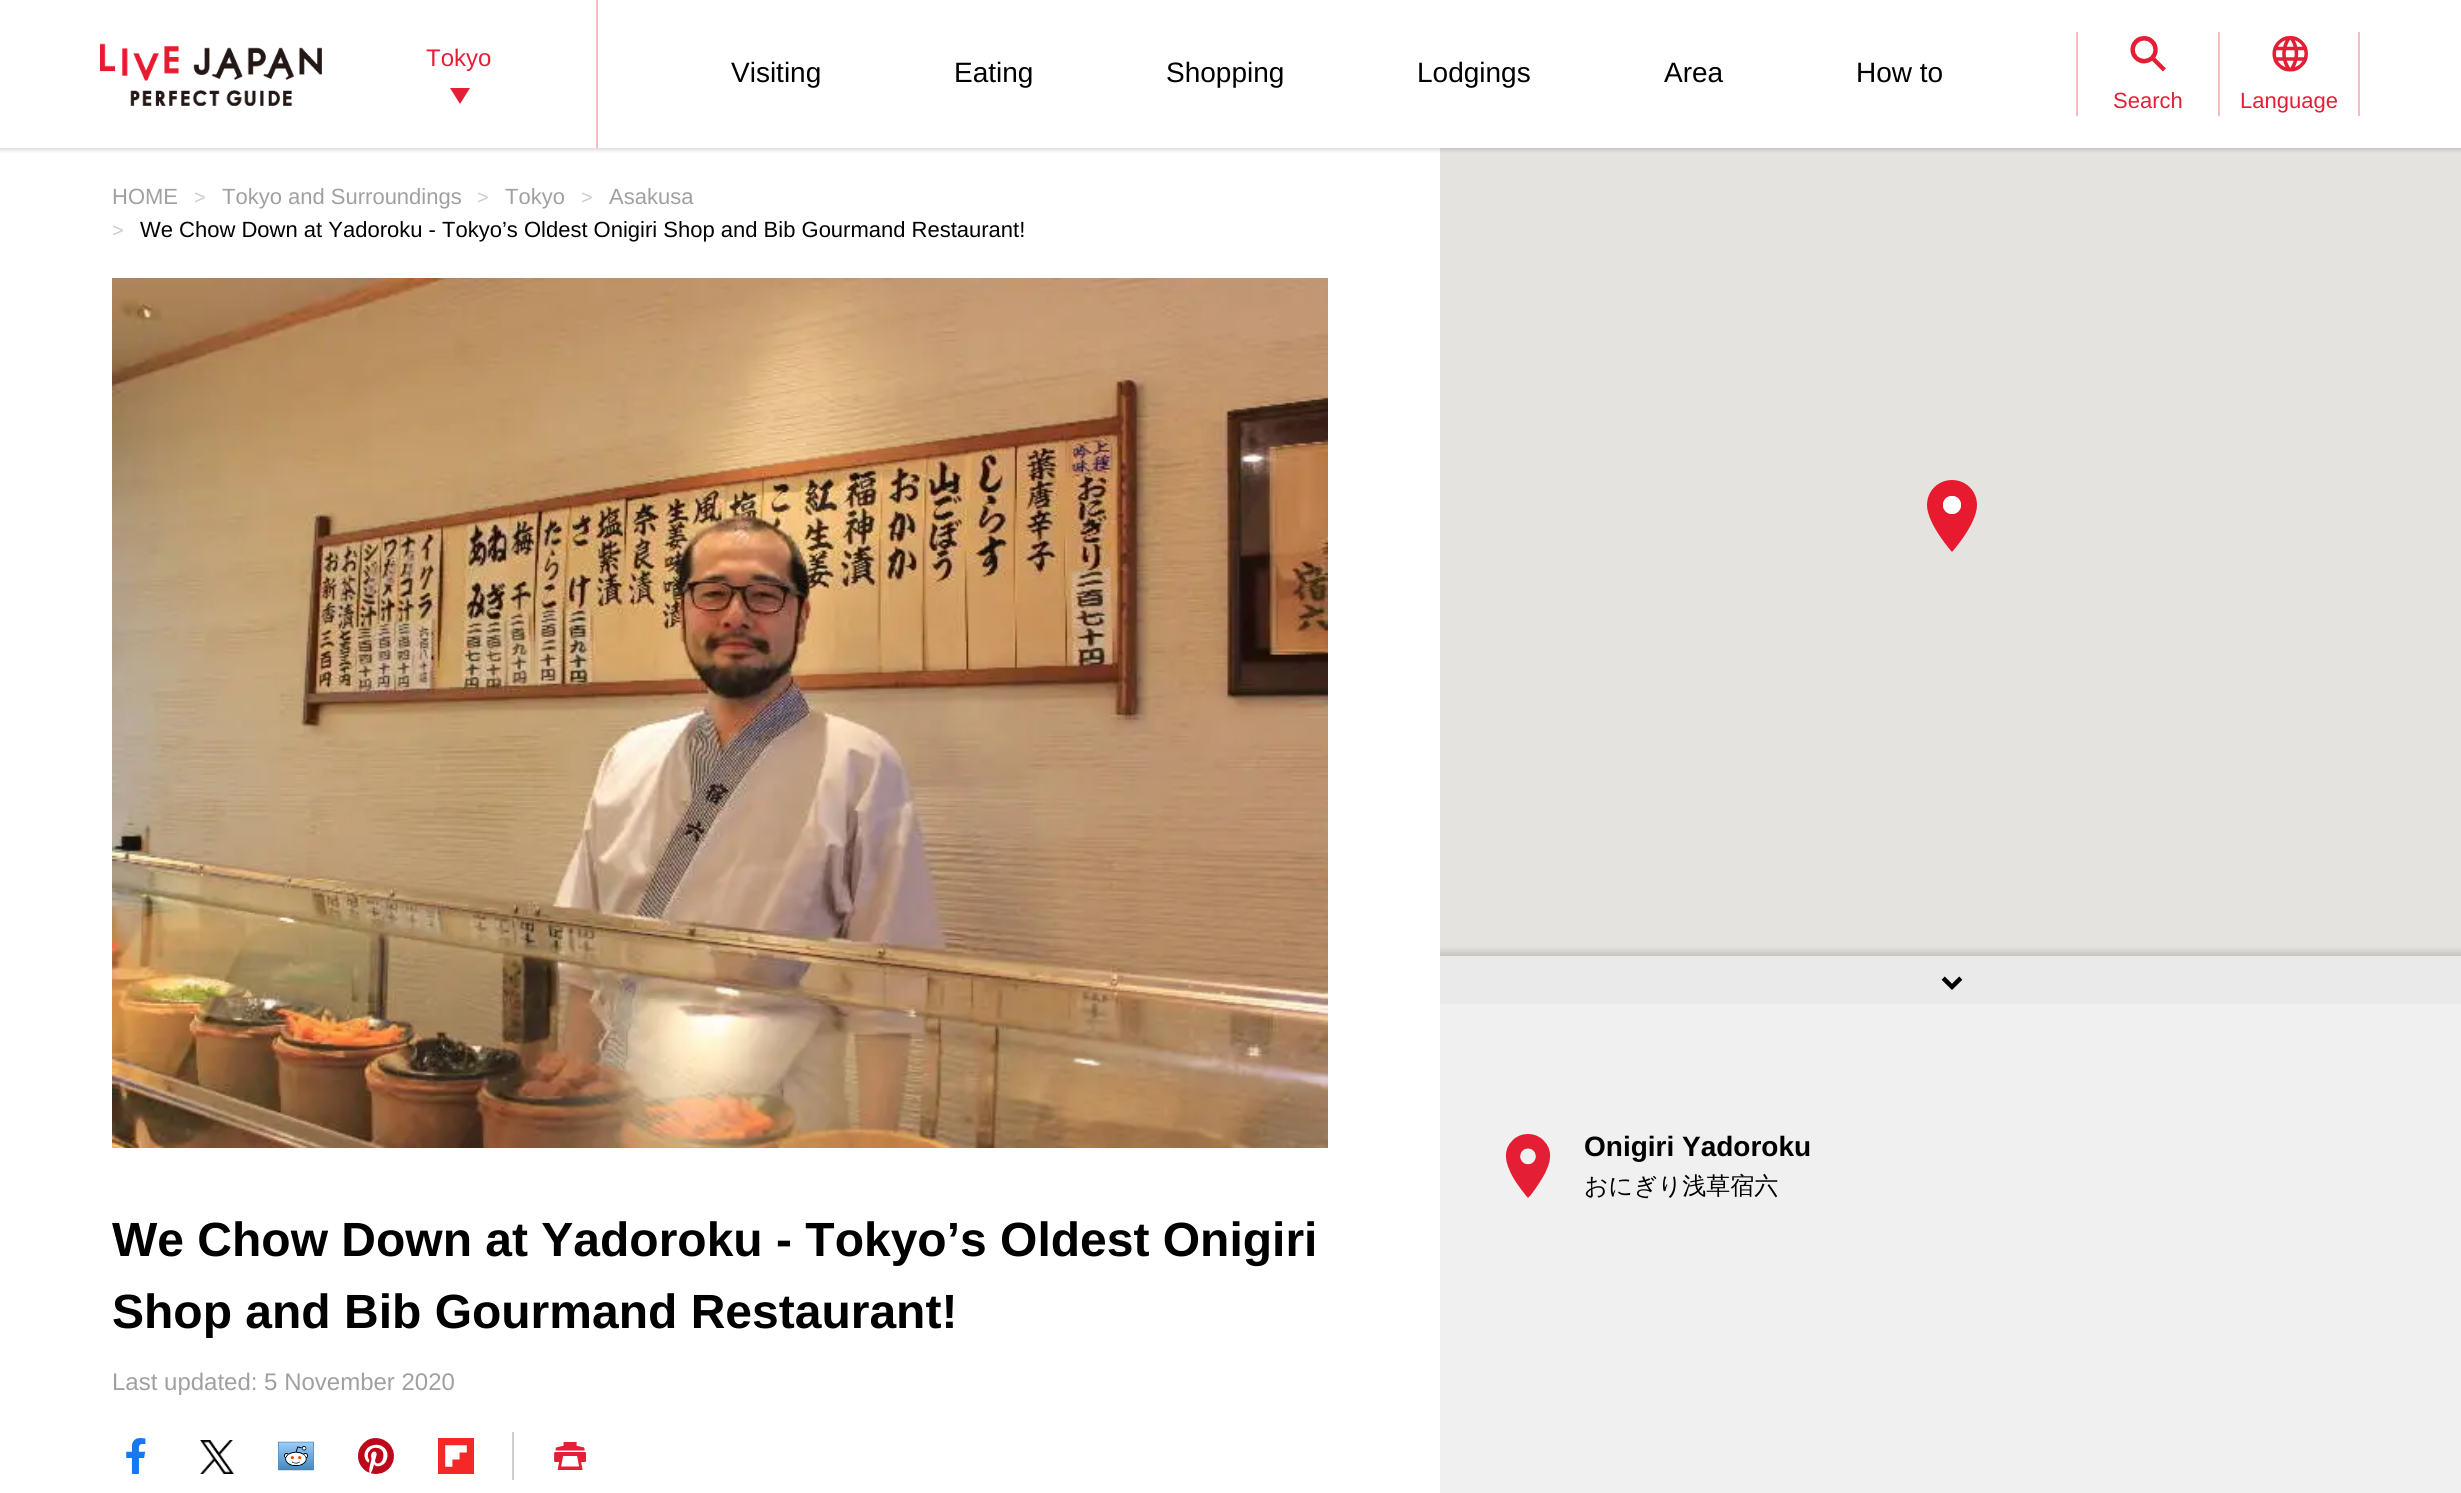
import math
import cairocffi as cairo

surface = cairo.ImageSurface(cairo.FORMAT_RGB24, 2461, 1493)
cr = cairo.Context(surface)
options = cairo.FontOptions()
options.set_hint_metrics(cairo.HINT_METRICS_OFF)
options.set_hint_style(cairo.HINT_STYLE_NONE)
cr.set_font_options(options)
cr.set_miter_limit(4)


def use_color(code):
    cr.set_source_rgb(*(v / 255 for v in bytes.fromhex(code[-6:])))


def round_rect(x, y, w, h, r):
    cr.new_sub_path()
    for i, (u, v) in enumerate([(x + w - r, y + h - r), (x + r, y + h - r), (x + r, y + r), (x + w - r, y + r)]):
        cr.arc(u, v, r, i * math.pi / 2, (i + 1) * math.pi / 2)
    cr.close_path()


def shadow(x, y, w, h, r, blur, alpha):
    cr.push_group_with_content(cairo.CONTENT_ALPHA)
    cr.set_operator(cairo.OPERATOR_SOURCE)
    for i in range(15, -16, -2):
        e = blur * i / 6
        if min(w, h) + 2 * e > 0:
            cr.set_source_rgba(0, 0, 0, alpha * math.erfc((i - 1) / 8.5) / 2)
            round_rect(x - e, y - e, w + 2 * e, h + 2 * e, max(0, min(r + e + blur * .6, min(w, h) / 2 + e)))
            cr.fill()
    cr.mask(cr.pop_group())


def picture(path, x, y, w, h):
    cr.save()
    cr.set_source_surface(cairo.ImageSurface.create_from_png(path), x, y)
    cr.rectangle(x, y, w, h)
    cr.fill()
    cr.restore()


use_color("#ffffff")
cr.paint()
use_color("#e5e3df")
cr.rectangle(1440, 148, 1021, 808)
cr.fill()
cr.save()
cr.rectangle(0, 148, 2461, 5)
cr.clip()
use_color("#323232")
shadow(-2, -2, 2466, 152, 0, 2, 0.2)
cr.restore()
picture("img1.png", 100, 43, 222, 63)
cr.select_font_face("Liberation Sans")
cr.set_font_size(24)
use_color("#e41f35")
cr.move_to(426, 66)
cr.show_text("Tokyo")
cr.new_path()
cr.move_to(450, 88)
cr.line_to(470, 88)
cr.line_to(460, 104)
cr.close_path()
cr.fill()
use_color("#f7bbc2")
cr.rectangle(596, 0, 2, 148)
cr.fill()
cr.set_font_size(28)
use_color("#000000")
cr.move_to(731, 82)
cr.show_text("Visiting")
cr.move_to(954, 82)
cr.show_text("Eating")
cr.move_to(1166, 82)
cr.show_text("Shopping")
cr.move_to(1417, 82)
cr.show_text("Lodgings")
cr.move_to(1664, 82)
cr.show_text("Area")
cr.move_to(1856, 82)
cr.show_text("How to")
use_color("#f7bbc2")
cr.rectangle(2076, 32, 2, 84)
cr.fill()
picture("img2.png", 2130, 36, 36, 36)
cr.set_font_size(22)
use_color("#e41f35")
cr.move_to(2113, 108)
cr.show_text("Search")
use_color("#f7bbc2")
cr.rectangle(2358, 32, 2, 84)
cr.fill()
cr.rectangle(2218, 32, 2, 84)
cr.fill()
picture("img3.png", 2272, 36, 36, 36)
use_color("#e41f35")
cr.move_to(2240, 108)
cr.show_text("Language")
use_color("#a0a0a0")
cr.move_to(112, 204)
cr.show_text("HOME")
cr.set_font_size(20)
use_color("#cccccc")
cr.move_to(194, 204)
cr.show_text(">")
cr.set_font_size(22)
use_color("#a0a0a0")
cr.move_to(222, 204)
cr.show_text("Tokyo and Surroundings")
cr.set_font_size(20)
use_color("#cccccc")
cr.move_to(477, 204)
cr.show_text(">")
cr.set_font_size(22)
use_color("#a0a0a0")
cr.move_to(505, 204)
cr.show_text("Tokyo")
cr.set_font_size(20)
use_color("#cccccc")
cr.move_to(581, 204)
cr.show_text(">")
cr.set_font_size(22)
use_color("#a0a0a0")
cr.move_to(609, 204)
cr.show_text("Asakusa")
cr.set_font_size(20)
use_color("#cccccc")
cr.move_to(112, 237)
cr.show_text(">")
cr.set_font_size(22)
use_color("#000000")
cr.move_to(140, 237)
cr.show_text("We Chow Down at Yadoroku - Tokyo’s Oldest Onigiri Shop and Bib Gourmand Restaurant!")
picture("img4.png", 112, 278, 1216, 870)
cr.select_font_face("Liberation Sans", cairo.FONT_SLANT_NORMAL, cairo.FONT_WEIGHT_BOLD)
cr.set_font_size(48)
cr.move_to(112, 1256)
cr.show_text("We Chow Down at Yadoroku - Tokyo’s Oldest Onigiri")
cr.move_to(112, 1328)
cr.show_text("Shop and Bib Gourmand Restaurant!")
cr.select_font_face("Liberation Sans")
cr.set_font_size(24)
use_color("#a0a0a0")
cr.move_to(112, 1390)
cr.show_text("Last updated: 5 November 2020")
use_color("#cfcfcf")
cr.rectangle(512, 1432, 2, 48)
cr.fill()
picture("img5.png", 126, 1438, 20, 36)
picture("img6.png", 200, 1440, 34, 34)
picture("img7.png", 278, 1441, 36, 30)
picture("img8.png", 358, 1438, 36, 36)
picture("img9.png", 438, 1438, 36, 36)
picture("img10.png", 554, 1442, 32, 28)
use_color("#f0f0f0")
cr.rectangle(1440, 1004, 1021, 489)
cr.fill()
use_color("#e71a2f")
cr.new_path()
cr.move_to(1952, 480)
cr.curve_to(1938, 480, 1927, 491, 1927, 505)
cr.curve_to(1927, 524, 1952, 552, 1952, 552)
cr.curve_to(1952, 552, 1977, 524, 1977, 505)
cr.curve_to(1977, 491, 1966, 480, 1952, 480)
cr.close_path()
cr.move_to(1952, 514)
cr.curve_to(1940, 514, 1940, 496, 1952, 496)
cr.curve_to(1964, 496, 1964, 514, 1952, 514)
cr.close_path()
cr.fill()
use_color("#ffffff")
cr.arc(1952, 505, 9, 0, 2 * math.pi)
cr.fill()
cr.save()
cr.rectangle(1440, 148, 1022, 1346)
cr.clip()
cr.rectangle(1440, 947, 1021, 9)
cr.clip()
use_color("#323232")
shadow(1436, 952, 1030, 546, 0, 4, 0.2)
cr.restore()
use_color("#eaeaea")
cr.rectangle(1440, 956, 1021, 48)
cr.fill()
picture("img11.png", 1941, 976, 22, 14)
picture("img12.png", 1505, 1134, 46, 64)
cr.select_font_face("Liberation Sans", cairo.FONT_SLANT_NORMAL, cairo.FONT_WEIGHT_BOLD)
cr.set_font_size(28)
use_color("#000000")
cr.move_to(1584, 1156)
cr.show_text("Onigiri Yadoroku")
cr.select_font_face("WenQuanYi Zen Hei Medium")
cr.set_font_size(24)
cr.move_to(1584, 1194)
cr.show_text("おにぎり浅草宿六")
surface.write_to_png("result.png")
